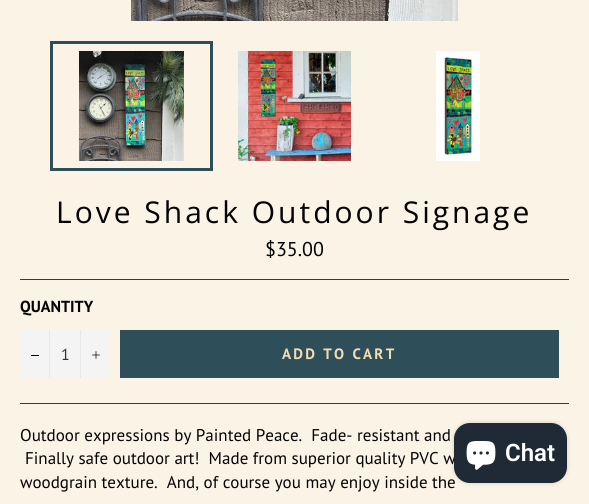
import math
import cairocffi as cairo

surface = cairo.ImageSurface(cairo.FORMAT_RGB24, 589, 504)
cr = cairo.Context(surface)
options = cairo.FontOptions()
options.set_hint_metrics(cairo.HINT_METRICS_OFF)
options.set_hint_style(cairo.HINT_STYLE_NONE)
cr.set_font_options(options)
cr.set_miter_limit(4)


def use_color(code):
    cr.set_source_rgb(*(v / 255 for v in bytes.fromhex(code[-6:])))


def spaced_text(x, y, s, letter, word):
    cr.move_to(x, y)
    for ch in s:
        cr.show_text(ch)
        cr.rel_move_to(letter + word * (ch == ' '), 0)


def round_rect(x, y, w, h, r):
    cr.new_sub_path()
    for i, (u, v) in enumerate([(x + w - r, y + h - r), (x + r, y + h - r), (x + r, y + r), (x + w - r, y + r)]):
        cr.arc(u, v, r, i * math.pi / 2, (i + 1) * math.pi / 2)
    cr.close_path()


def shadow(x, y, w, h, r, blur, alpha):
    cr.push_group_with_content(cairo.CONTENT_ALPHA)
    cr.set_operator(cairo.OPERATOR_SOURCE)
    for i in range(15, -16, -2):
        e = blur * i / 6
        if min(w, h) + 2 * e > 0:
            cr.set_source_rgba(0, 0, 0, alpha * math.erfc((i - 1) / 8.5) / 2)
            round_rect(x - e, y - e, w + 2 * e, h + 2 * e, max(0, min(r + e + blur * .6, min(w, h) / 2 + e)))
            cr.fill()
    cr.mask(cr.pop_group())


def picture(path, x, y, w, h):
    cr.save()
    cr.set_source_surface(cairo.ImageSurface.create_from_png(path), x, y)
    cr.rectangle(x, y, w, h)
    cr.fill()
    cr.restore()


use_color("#faf3e6")
cr.paint()
picture("img1.png", 131, 0, 327, 21)
picture("img2.png", 79, 51, 105, 110)
cr.rectangle(51.5, 42.5, 160, 127)
use_color("#2e4e59")
cr.set_line_width(3)
cr.stroke()
picture("img3.png", 238, 51, 113, 110)
picture("img4.png", 436, 51, 44, 110)
cr.select_font_face("Open Sans")
cr.set_font_size(30)
use_color("#030303")
spaced_text(56, 223, "Love Shack Outdoor Signage", 3, 0)
cr.select_font_face("PT Sans")
cr.set_font_size(20)
cr.move_to(265, 256)
cr.show_text("$35.00")
use_color("#064a63")
cr.rectangle(20, 279, 549, 1)
cr.fill()
cr.select_font_face("PT Sans", cairo.FONT_SLANT_NORMAL, cairo.FONT_WEIGHT_BOLD)
cr.set_font_size(16)
use_color("#030303")
cr.move_to(20, 312)
cr.show_text("QUANTITY")
use_color("#f4f4f4")
cr.rectangle(20, 330, 90, 48)
cr.fill()
use_color("#e7e7e7")
cr.rectangle(49, 330, 1, 48)
cr.fill()
use_color("#030303")
cr.rectangle(31, 355, 8, 1)
cr.fill()
cr.select_font_face("PT Sans")
use_color("#333333")
cr.move_to(61, 360)
cr.show_text("1")
use_color("#e7e7e7")
cr.rectangle(80, 330, 1, 48)
cr.fill()
picture("img5.png", 92, 351, 8, 8)
use_color("#2e4e59")
cr.rectangle(120, 330, 439, 48)
cr.fill()
cr.select_font_face("PT Sans", cairo.FONT_SLANT_NORMAL, cairo.FONT_WEIGHT_BOLD)
cr.set_font_size(15)
use_color("#f2dcb1")
spaced_text(282, 359, "ADD TO CART", 2.25, 0)
use_color("#064a63")
cr.rectangle(20, 403, 549, 1)
cr.fill()
cr.select_font_face("PT Sans")
cr.set_font_size(17)
use_color("#030303")
cr.move_to(20, 441)
cr.show_text("Outdoor expressions by Painted Peace.  Fade- resistant and")
cr.move_to(25, 464)
cr.show_text("Finally safe outdoor art!  Made from superior quality PVC w")
cr.move_to(20, 488)
cr.show_text("woodgrain texture.  And, of course you may enjoy inside the")
use_color("#000000")
shadow(454, 423, 113, 60, 16, 2.5, 0.15)
use_color("#202a36")
round_rect(454, 423, 113, 60, 16)
cr.fill()
picture("img6.png", 466, 441, 30, 29)
cr.select_font_face("Roboto SemiBold")
cr.set_font_size(24)
use_color("#ffffff")
cr.move_to(505, 461)
cr.show_text("Chat")
surface.write_to_png("result.png")
